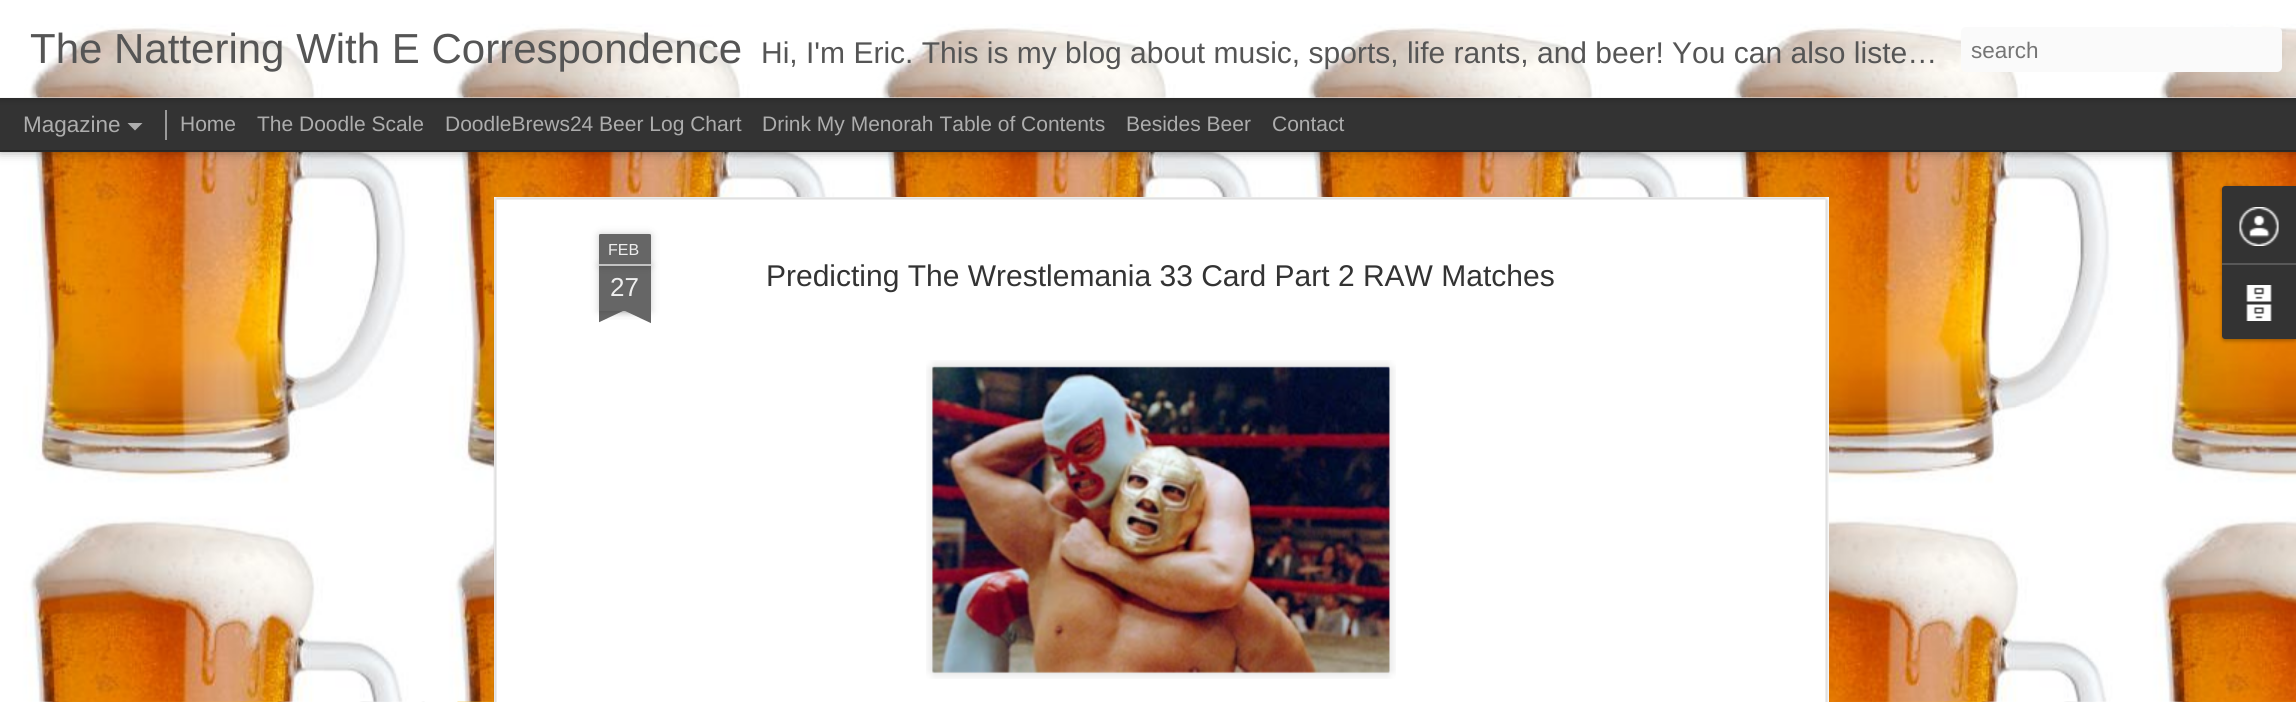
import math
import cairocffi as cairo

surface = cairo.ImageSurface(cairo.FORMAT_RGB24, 2296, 702)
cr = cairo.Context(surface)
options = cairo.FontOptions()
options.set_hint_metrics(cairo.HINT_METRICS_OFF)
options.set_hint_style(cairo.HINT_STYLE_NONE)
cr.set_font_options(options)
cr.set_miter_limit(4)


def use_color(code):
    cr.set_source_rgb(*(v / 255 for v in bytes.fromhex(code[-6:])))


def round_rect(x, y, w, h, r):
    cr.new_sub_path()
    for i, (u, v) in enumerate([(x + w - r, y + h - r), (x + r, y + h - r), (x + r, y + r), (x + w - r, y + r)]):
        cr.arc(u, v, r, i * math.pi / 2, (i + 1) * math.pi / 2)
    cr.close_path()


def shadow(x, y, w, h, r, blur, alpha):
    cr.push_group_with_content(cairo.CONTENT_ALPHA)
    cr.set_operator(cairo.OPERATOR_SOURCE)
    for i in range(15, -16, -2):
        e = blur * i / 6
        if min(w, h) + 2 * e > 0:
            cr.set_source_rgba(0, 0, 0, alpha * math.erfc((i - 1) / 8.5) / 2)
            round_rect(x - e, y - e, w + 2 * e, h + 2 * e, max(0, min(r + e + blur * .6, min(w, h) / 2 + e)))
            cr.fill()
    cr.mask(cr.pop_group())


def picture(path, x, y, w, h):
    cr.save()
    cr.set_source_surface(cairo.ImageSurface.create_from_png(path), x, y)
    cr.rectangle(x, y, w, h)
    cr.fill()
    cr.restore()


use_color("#ffffff")
cr.paint()
picture("img1.png", 0, 701, 2296, 1)
use_color("#333333")
cr.rectangle(0, 150, 2296, 2)
cr.fill()
picture("img9.png", 421, 701, 1456, 1)
picture("img10.png", 457, 701, 37, 1)
picture("img3.png", 0, 152, 2296, 550)
use_color("#000000")
shadow(0, 98, 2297, 52, 0, 6, 0.5)
use_color("#333333")
cr.rectangle(0, 98, 2296, 52)
cr.fill()
use_color("#999999")
cr.rectangle(165, 110, 2, 30)
cr.fill()
use_color("#000000")
shadow(0, 0, 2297, 98, 0, 4, 0.3)
use_color("#f3f3f3")
cr.rectangle(0, 97, 2296, 1)
cr.fill()
picture("img2.png", 0, 0, 2296, 98)
cr.select_font_face("Liberation Sans")
cr.set_font_size(42)
use_color("#555555")
cr.move_to(30, 63)
cr.show_text("The Nattering With E Correspondence")
cr.set_font_size(30)
cr.move_to(761, 63)
cr.show_text("Hi, I'm Eric. This is my blog about music, sports, life rants, and beer! You can also liste…")
use_color("#fafafa")
round_rect(1961, 27, 321, 45, 5)
cr.fill()
cr.set_font_size(22.5)
use_color("#757575")
cr.move_to(1971, 58)
cr.show_text("search")
use_color("#adadad")
cr.move_to(23, 132)
cr.show_text("Magazine")
cr.new_path()
cr.move_to(127.5, 123)
cr.line_to(142.5, 123)
cr.line_to(135, 130.5)
cr.close_path()
cr.fill()
cr.set_font_size(21)
cr.move_to(180, 131)
cr.show_text("Home")
cr.move_to(257, 131)
cr.show_text("The Doodle Scale")
cr.move_to(445, 131)
cr.show_text("DoodleBrews24 Beer Log Chart")
cr.move_to(762, 131)
cr.show_text("Drink My Menorah Table of Contents")
cr.move_to(1126, 131)
cr.show_text("Besides Beer")
cr.move_to(1272, 131)
cr.show_text("Contact")
use_color("#ffffff")
cr.rectangle(494, 197, 1335, 505)
cr.fill()
picture("img4.png", 493, 197, 1336, 505)
use_color("#000000")
shadow(599, 266, 52, 45, 0, 4, 0.2)
use_color("#666666")
cr.rectangle(599, 266, 52, 45)
cr.fill()
use_color("#000000")
shadow(599, 234, 52, 32, 1.5, 4, 0.2)
use_color("#666666")
cr.new_path()
cr.move_to(600.5, 234)
cr.line_to(649.5, 234)
cr.curve_to(650.5, 234, 651, 234.5, 651, 235.5)
cr.line_to(651, 266)
cr.line_to(599, 266)
cr.line_to(599, 235.5)
cr.curve_to(599, 234.5, 599.5, 234, 600.5, 234)
cr.close_path()
cr.fill()
use_color("#c2c2c2")
cr.rectangle(599, 264, 52, 2)
cr.fill()
cr.set_font_size(16)
use_color("#eeeeee")
cr.move_to(608, 255)
cr.show_text("FEB")
cr.set_font_size(26)
cr.move_to(610, 296)
cr.show_text("27")
cr.save()
cr.rectangle(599, 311, 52, 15)
cr.clip()
use_color("#000000")
shadow(585, 296, 75, 15, 0, 4, 0.2)
cr.restore()
cr.save()
cr.rectangle(599, 311, 52, 15)
cr.clip()
use_color("#666666")
cr.new_path()
cr.move_to(585, 312)
cr.line_to(653, 280)
cr.line_to(659, 294)
cr.line_to(591, 326)
cr.close_path()
cr.fill()
cr.restore()
cr.save()
cr.rectangle(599, 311, 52, 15)
cr.clip()
use_color("#000000")
shadow(590, 296, 75, 15, 0, 4, 0.2)
cr.restore()
cr.save()
cr.rectangle(599, 311, 52, 15)
cr.clip()
use_color("#666666")
cr.new_path()
cr.move_to(595, 280)
cr.line_to(663, 312)
cr.line_to(657, 326)
cr.line_to(589, 294)
cr.close_path()
cr.fill()
cr.restore()
cr.set_font_size(30)
use_color("#333333")
cr.move_to(766, 286)
cr.show_text("Predicting The Wrestlemania 33 Card Part 2 RAW Matches")
picture("img5.png", 926, 360, 470, 319)
picture("img6.png", 932, 366, 458, 308)
use_color("#000000")
shadow(2222, 188, 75, 153, 3, 2, 0.3)
use_color("#333333")
cr.new_path()
cr.move_to(2225, 186)
cr.line_to(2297, 186)
cr.line_to(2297, 263)
cr.line_to(2222, 263)
cr.line_to(2222, 189)
cr.curve_to(2222, 187.5, 2223.5, 186, 2225, 186)
cr.close_path()
cr.fill()
picture("img7.png", 2239, 207, 40, 39)
cr.new_path()
cr.move_to(2222, 263)
cr.line_to(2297, 263)
cr.line_to(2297, 339)
cr.line_to(2225, 339)
cr.curve_to(2223.5, 339, 2222, 337.5, 2222, 336)
cr.close_path()
cr.fill()
use_color("#585858")
cr.rectangle(2222, 263, 74, 2)
cr.fill()
picture("img8.png", 2246, 285, 26, 36)
surface.write_to_png("result.png")
